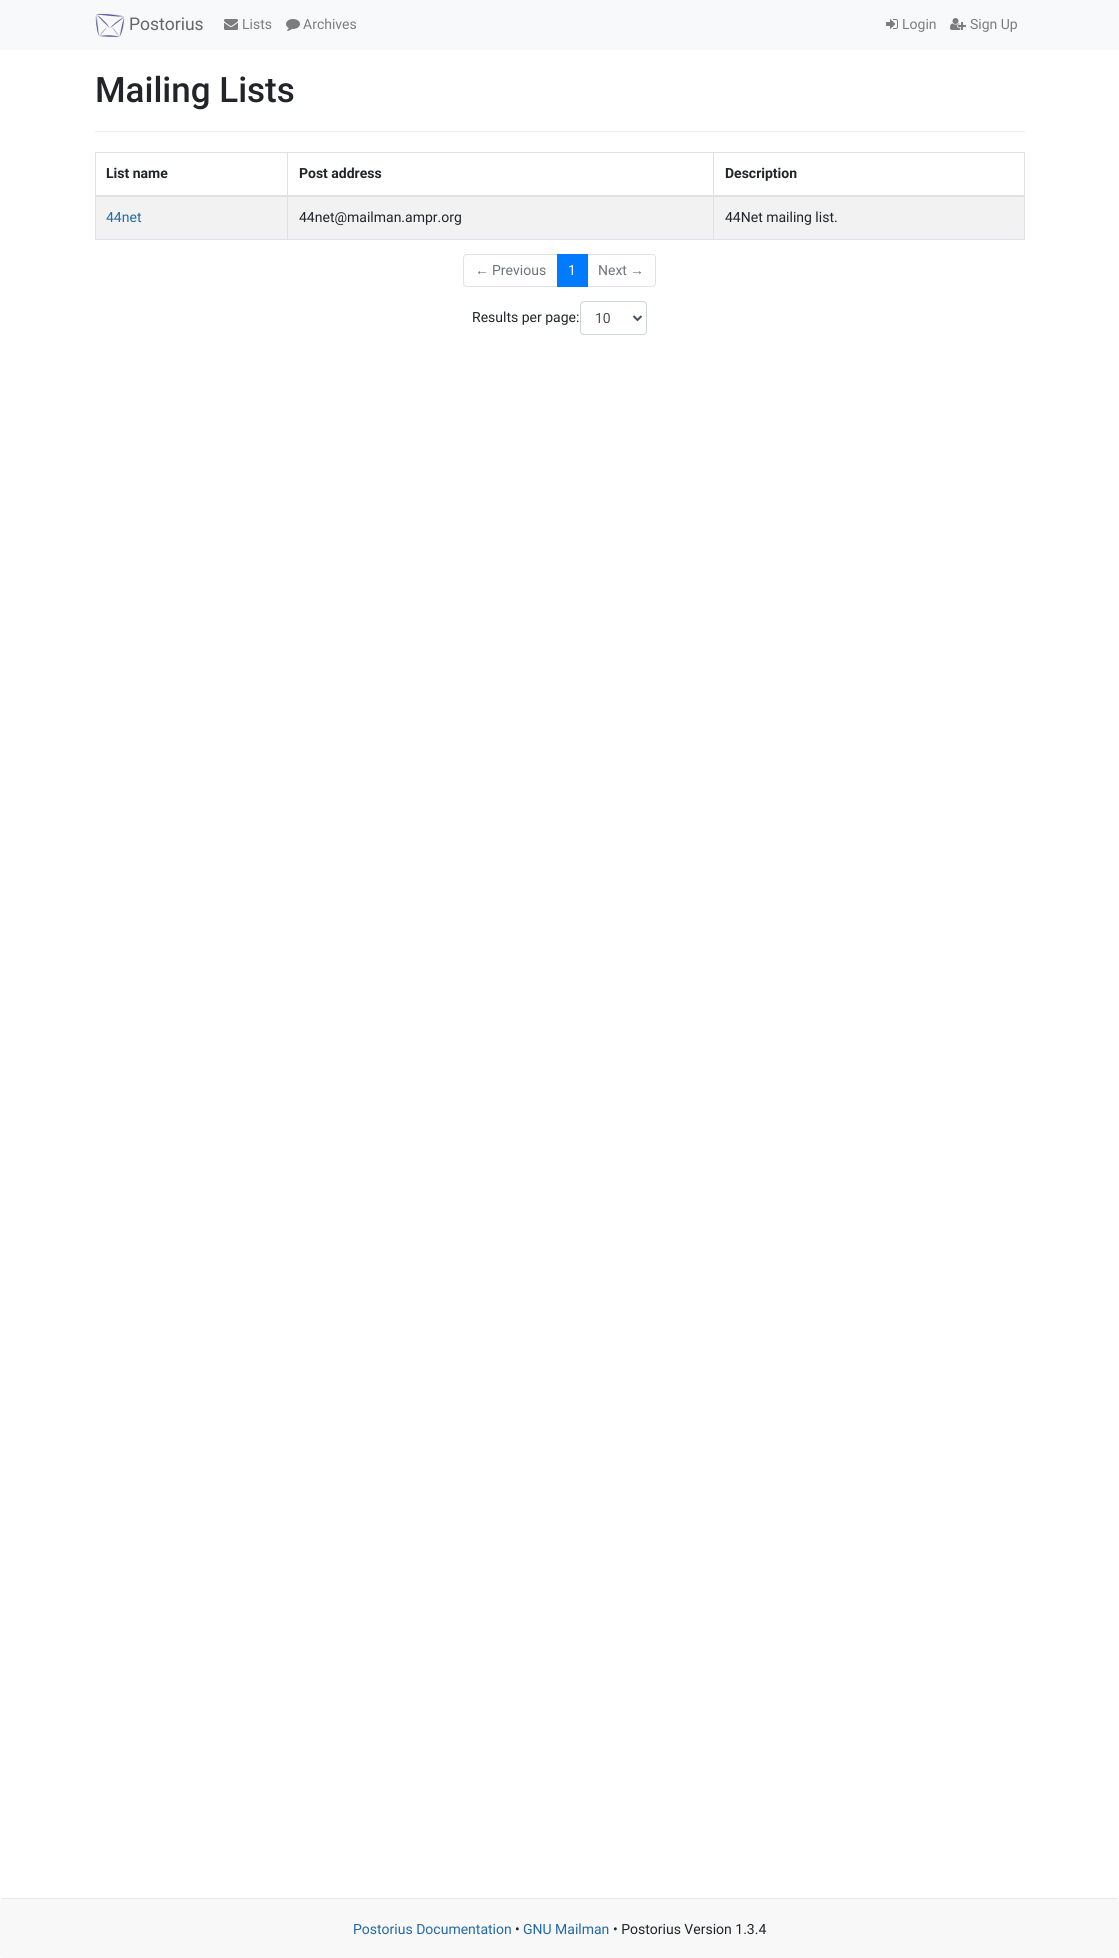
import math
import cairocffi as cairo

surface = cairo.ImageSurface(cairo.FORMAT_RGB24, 1119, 1958)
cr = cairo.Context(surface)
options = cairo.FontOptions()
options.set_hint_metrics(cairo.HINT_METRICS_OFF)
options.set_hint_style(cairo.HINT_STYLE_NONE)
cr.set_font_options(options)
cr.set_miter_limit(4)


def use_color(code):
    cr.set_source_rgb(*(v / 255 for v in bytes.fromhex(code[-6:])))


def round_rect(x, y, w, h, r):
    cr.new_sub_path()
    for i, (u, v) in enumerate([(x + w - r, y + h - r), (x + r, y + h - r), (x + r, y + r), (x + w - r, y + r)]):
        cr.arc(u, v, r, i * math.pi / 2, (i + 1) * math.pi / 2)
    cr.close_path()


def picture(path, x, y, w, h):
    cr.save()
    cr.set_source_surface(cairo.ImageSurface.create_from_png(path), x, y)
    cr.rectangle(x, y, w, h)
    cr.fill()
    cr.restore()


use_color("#ffffff")
cr.paint()
use_color("#f8f9fa")
cr.rectangle(0, 0, 1119, 50)
cr.fill()
picture("img1.png", 95, 13, 30, 25)
cr.select_font_face("Roboto")
cr.set_font_size(17.5)
use_color("#666666")
cr.move_to(129, 30)
cr.show_text("Postorius")
picture("img2.png", 224, 19, 14, 11)
cr.set_font_size(14)
use_color("#7c7d7d")
cr.move_to(242, 29)
cr.show_text("Lists")
picture("img3.png", 286, 19, 14, 12)
cr.move_to(303, 29)
cr.show_text("Archives")
picture("img4.png", 886, 19, 12, 10)
cr.move_to(902, 29)
cr.show_text("Login")
picture("img5.png", 950, 18, 16, 12)
cr.move_to(970, 29)
cr.show_text("Sign Up")
use_color("#eeeeee")
cr.rectangle(95, 131, 930, 1)
cr.fill()
cr.select_font_face("Roboto Medium")
cr.set_font_size(35)
use_color("#212529")
cr.move_to(95, 102)
cr.show_text("Mailing Lists")
use_color("#dee2e6")
cr.rectangle(713, 152, 312, 1)
cr.fill()
use_color("#f2f2f2")
cr.rectangle(96, 197, 928, 42)
cr.fill()
use_color("#dee2e6")
cr.rectangle(1024, 195, 1, 45)
cr.fill()
cr.rectangle(713, 239, 312, 1)
cr.fill()
cr.rectangle(713, 195, 1, 45)
cr.fill()
cr.rectangle(713, 152, 1, 44)
cr.fill()
cr.rectangle(287, 152, 427, 1)
cr.fill()
cr.rectangle(287, 239, 427, 1)
cr.fill()
cr.rectangle(287, 195, 1, 45)
cr.fill()
cr.rectangle(287, 152, 1, 44)
cr.fill()
cr.rectangle(95, 152, 193, 1)
cr.fill()
cr.rectangle(95, 239, 193, 1)
cr.fill()
cr.rectangle(95, 195, 1, 45)
cr.fill()
cr.rectangle(95, 152, 1, 44)
cr.fill()
cr.select_font_face("Roboto", cairo.FONT_SLANT_NORMAL, cairo.FONT_WEIGHT_BOLD)
cr.set_font_size(14)
use_color("#212529")
cr.move_to(106, 178)
cr.show_text("List name")
cr.move_to(299, 178)
cr.show_text("Post address")
use_color("#dee2e6")
cr.rectangle(1024, 152, 1, 44)
cr.fill()
cr.rectangle(95, 195, 930, 2)
cr.fill()
use_color("#212529")
cr.move_to(725, 178)
cr.show_text("Description")
cr.select_font_face("Roboto")
use_color("#2269a6")
cr.move_to(106, 222)
cr.show_text("44net")
use_color("#212529")
cr.move_to(299, 222)
cr.show_text("44net@mailman.ampr.org")
cr.move_to(725, 222)
cr.show_text("44Net mailing list.")
cr.new_path()
cr.move_to(467, 254.5)
cr.line_to(557.5, 254.5)
cr.line_to(557.5, 286.5)
cr.line_to(467, 286.5)
cr.curve_to(465, 286.5, 463.5, 285, 463.5, 283)
cr.line_to(463.5, 258)
cr.curve_to(463.5, 256, 465, 254.5, 467, 254.5)
cr.close_path()
use_color("#dee2e6")
cr.set_line_width(1)
cr.stroke()
cr.select_font_face("Liberation Sans")
use_color("#6c757d")
cr.move_to(475, 275)
cr.show_text("←")
cr.select_font_face("Roboto")
cr.move_to(492, 275)
cr.show_text("Previous")
cr.new_path()
cr.move_to(587.5, 254.5)
cr.line_to(652, 254.5)
cr.curve_to(654, 254.5, 655.5, 256, 655.5, 258)
cr.line_to(655.5, 283)
cr.curve_to(655.5, 285, 654, 286.5, 652, 286.5)
cr.line_to(587.5, 286.5)
cr.close_path()
use_color("#dee2e6")
cr.stroke()
use_color("#007bff")
cr.rectangle(557, 254, 31, 33)
cr.fill()
use_color("#ffffff")
cr.move_to(568, 275)
cr.show_text("1")
use_color("#6c757d")
cr.move_to(598, 275)
cr.show_text("Next")
cr.select_font_face("Liberation Sans")
cr.move_to(630, 275)
cr.show_text("→")
cr.select_font_face("Roboto")
use_color("#212529")
cr.move_to(472, 322)
cr.show_text("Results per page:")
round_rect(580.5, 301.5, 66, 33, 3.5)
use_color("#ced4da")
cr.stroke()
cr.new_path()
cr.move_to(633.5, 316)
cr.line_to(637.5, 320)
cr.line_to(641.5, 316)
use_color("#495057")
cr.set_line_width(2)
cr.stroke()
cr.move_to(595, 323)
cr.show_text("10")
use_color("#f8f8f8")
round_rect(0, 1898, 1119, 60, 4)
cr.fill()
use_color("#e7e7e7")
cr.rectangle(2, 1898, 1115, 1)
cr.fill()
use_color("#2269a6")
cr.move_to(353, 1934)
cr.show_text("Postorius Documentation")
use_color("#212529")
cr.move_to(515, 1934)
cr.show_text("•")
use_color("#2269a6")
cr.move_to(523, 1934)
cr.show_text("GNU Mailman")
use_color("#212529")
cr.move_to(613, 1934)
cr.show_text("• Postorius Version 1.3.4")
surface.write_to_png("result.png")
